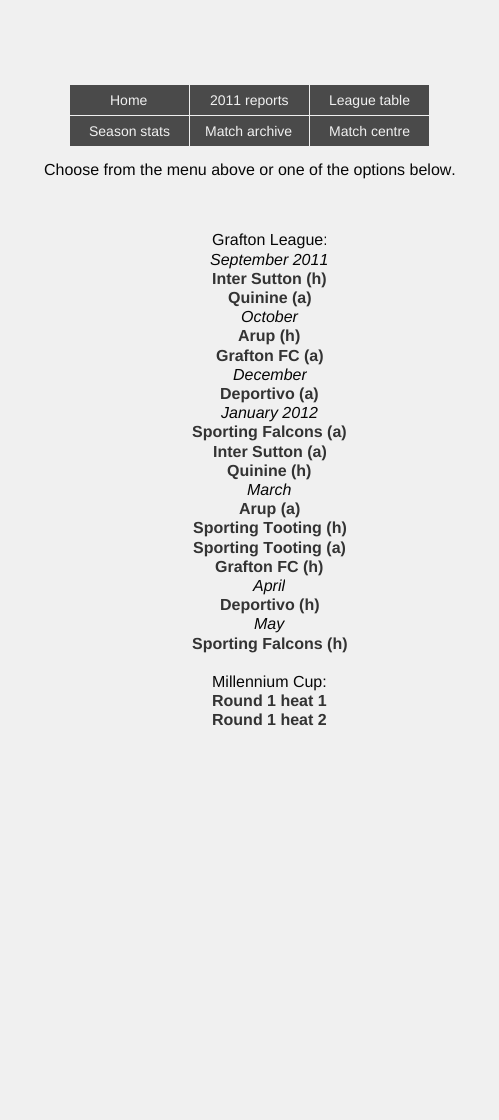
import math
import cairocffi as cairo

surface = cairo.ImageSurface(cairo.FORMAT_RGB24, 499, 1120)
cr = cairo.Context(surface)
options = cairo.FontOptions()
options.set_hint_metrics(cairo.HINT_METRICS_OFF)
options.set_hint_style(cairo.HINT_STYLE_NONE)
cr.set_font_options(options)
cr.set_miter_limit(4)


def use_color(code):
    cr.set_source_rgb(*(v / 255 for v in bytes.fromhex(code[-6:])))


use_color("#f0f0f0")
cr.paint()
use_color("#4a4a4a")
cr.rectangle(70, 85, 119, 30)
cr.fill()
cr.select_font_face("Liberation Sans")
cr.set_font_size(14)
use_color("#f0f0f0")
cr.move_to(110, 105)
cr.show_text("Home")
use_color("#4a4a4a")
cr.rectangle(190, 85, 119, 30)
cr.fill()
use_color("#f0f0f0")
cr.move_to(210, 105)
cr.show_text("2011 reports")
use_color("#4a4a4a")
cr.rectangle(310, 85, 119, 30)
cr.fill()
use_color("#f0f0f0")
cr.move_to(329, 105)
cr.show_text("League table")
use_color("#4a4a4a")
cr.rectangle(70, 116, 119, 30)
cr.fill()
use_color("#f0f0f0")
cr.move_to(89, 136)
cr.show_text("Season stats")
use_color("#4a4a4a")
cr.rectangle(190, 116, 119, 30)
cr.fill()
use_color("#f0f0f0")
cr.move_to(205, 136)
cr.show_text("Match archive")
use_color("#4a4a4a")
cr.rectangle(310, 116, 119, 30)
cr.fill()
use_color("#f0f0f0")
cr.move_to(329, 136)
cr.show_text("Match centre")
cr.set_font_size(16)
use_color("#060606")
cr.move_to(44, 175)
cr.show_text("Choose from the menu above or one of the options below.")
cr.move_to(212, 245)
cr.show_text("Grafton League:")
cr.select_font_face("Liberation Sans", cairo.FONT_SLANT_ITALIC)
cr.move_to(210, 265)
cr.show_text("September 2011")
cr.select_font_face("Liberation Sans", cairo.FONT_SLANT_NORMAL, cairo.FONT_WEIGHT_BOLD)
use_color("#333333")
cr.move_to(212, 284)
cr.show_text("Inter Sutton (h)")
cr.move_to(228, 303)
cr.show_text("Quinine (a)")
cr.select_font_face("Liberation Sans", cairo.FONT_SLANT_ITALIC)
use_color("#060606")
cr.move_to(241, 322)
cr.show_text("October")
cr.select_font_face("Liberation Sans", cairo.FONT_SLANT_NORMAL, cairo.FONT_WEIGHT_BOLD)
use_color("#333333")
cr.move_to(238, 341)
cr.show_text("Arup (h)")
cr.move_to(216, 361)
cr.show_text("Grafton FC (a)")
cr.select_font_face("Liberation Sans", cairo.FONT_SLANT_ITALIC)
use_color("#060606")
cr.move_to(233, 380)
cr.show_text("December")
cr.select_font_face("Liberation Sans", cairo.FONT_SLANT_NORMAL, cairo.FONT_WEIGHT_BOLD)
use_color("#333333")
cr.move_to(220, 399)
cr.show_text("Deportivo (a)")
cr.select_font_face("Liberation Sans", cairo.FONT_SLANT_ITALIC)
use_color("#060606")
cr.move_to(221, 418)
cr.show_text("January 2012")
cr.select_font_face("Liberation Sans", cairo.FONT_SLANT_NORMAL, cairo.FONT_WEIGHT_BOLD)
use_color("#333333")
cr.move_to(192, 437)
cr.show_text("Sporting Falcons (a)")
cr.move_to(213, 457)
cr.show_text("Inter Sutton (a)")
cr.move_to(227, 476)
cr.show_text("Quinine (h)")
cr.select_font_face("Liberation Sans", cairo.FONT_SLANT_ITALIC)
use_color("#060606")
cr.move_to(247, 495)
cr.show_text("March")
cr.select_font_face("Liberation Sans", cairo.FONT_SLANT_NORMAL, cairo.FONT_WEIGHT_BOLD)
use_color("#333333")
cr.move_to(239, 514)
cr.show_text("Arup (a)")
cr.move_to(193, 533)
cr.show_text("Sporting Tooting (h)")
cr.move_to(193, 553)
cr.show_text("Sporting Tooting (a)")
cr.move_to(215, 572)
cr.show_text("Grafton FC (h)")
cr.select_font_face("Liberation Sans", cairo.FONT_SLANT_ITALIC)
use_color("#060606")
cr.move_to(253, 591)
cr.show_text("April")
cr.select_font_face("Liberation Sans", cairo.FONT_SLANT_NORMAL, cairo.FONT_WEIGHT_BOLD)
use_color("#333333")
cr.move_to(220, 610)
cr.show_text("Deportivo (h)")
cr.select_font_face("Liberation Sans", cairo.FONT_SLANT_ITALIC)
use_color("#060606")
cr.move_to(254, 629)
cr.show_text("May")
cr.select_font_face("Liberation Sans", cairo.FONT_SLANT_NORMAL, cairo.FONT_WEIGHT_BOLD)
use_color("#333333")
cr.move_to(192, 649)
cr.show_text("Sporting Falcons (h)")
cr.select_font_face("Liberation Sans")
use_color("#060606")
cr.move_to(212, 687)
cr.show_text("Millennium Cup:")
cr.select_font_face("Liberation Sans", cairo.FONT_SLANT_NORMAL, cairo.FONT_WEIGHT_BOLD)
use_color("#333333")
cr.move_to(212, 706)
cr.show_text("Round 1 heat 1")
cr.move_to(212, 725)
cr.show_text("Round 1 heat 2")
surface.write_to_png("result.png")
